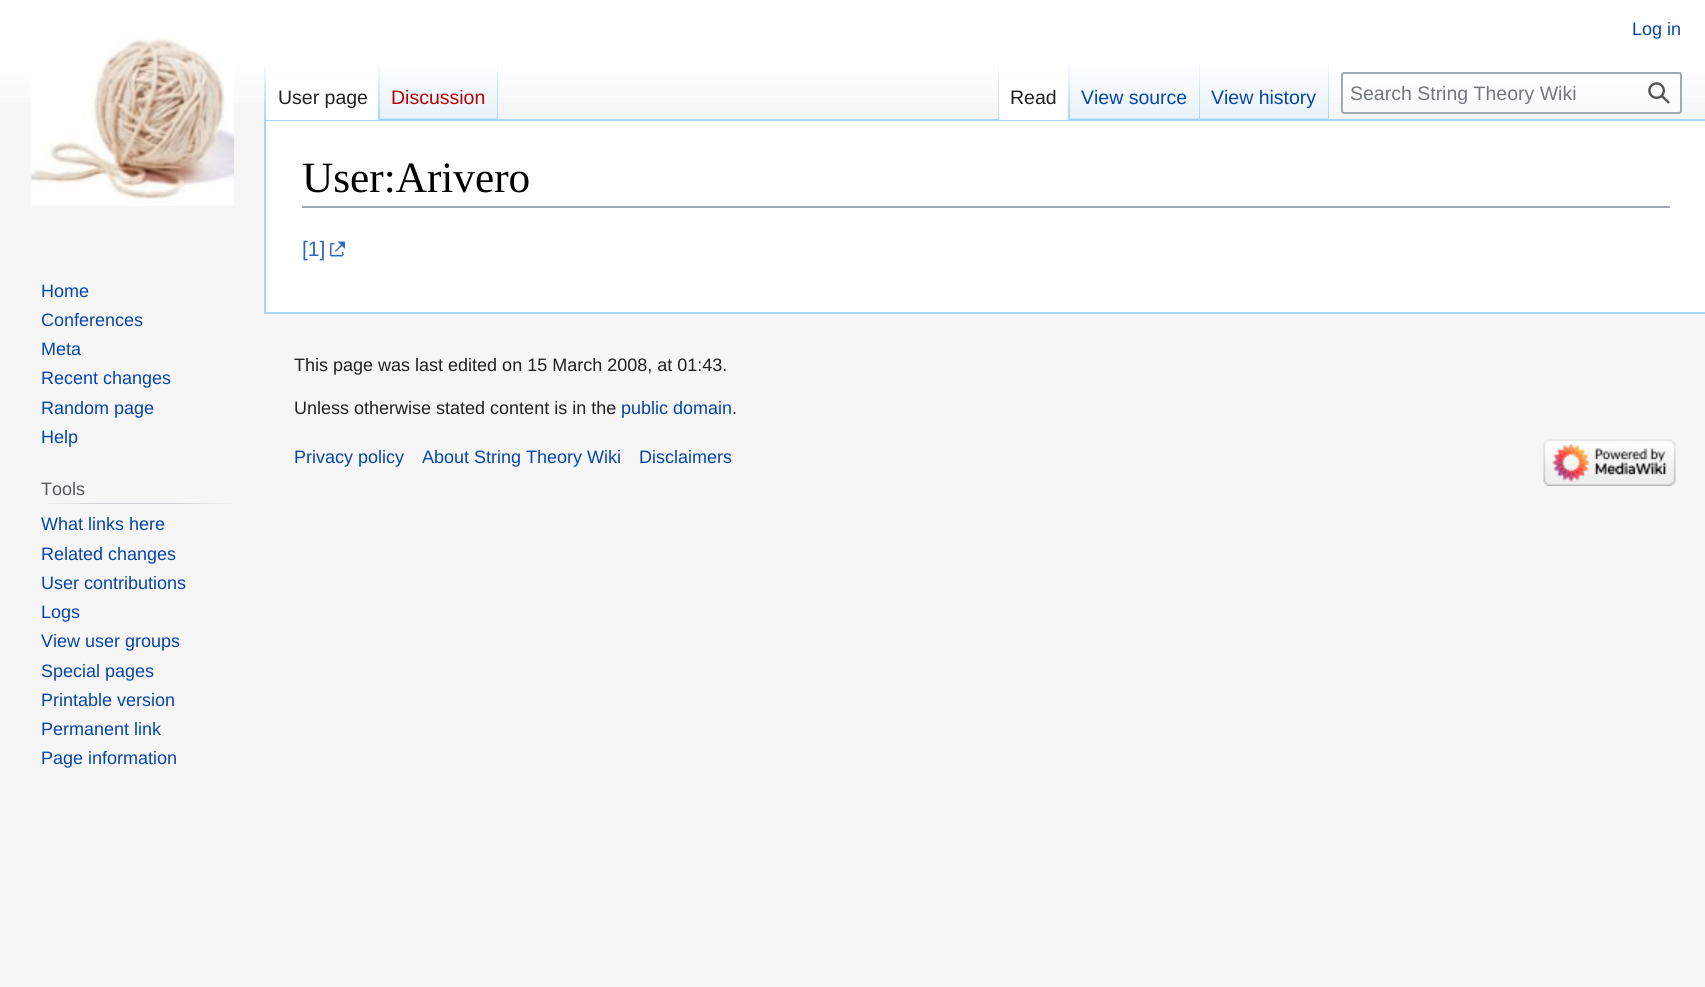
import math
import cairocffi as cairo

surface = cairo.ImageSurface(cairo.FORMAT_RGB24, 1705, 987)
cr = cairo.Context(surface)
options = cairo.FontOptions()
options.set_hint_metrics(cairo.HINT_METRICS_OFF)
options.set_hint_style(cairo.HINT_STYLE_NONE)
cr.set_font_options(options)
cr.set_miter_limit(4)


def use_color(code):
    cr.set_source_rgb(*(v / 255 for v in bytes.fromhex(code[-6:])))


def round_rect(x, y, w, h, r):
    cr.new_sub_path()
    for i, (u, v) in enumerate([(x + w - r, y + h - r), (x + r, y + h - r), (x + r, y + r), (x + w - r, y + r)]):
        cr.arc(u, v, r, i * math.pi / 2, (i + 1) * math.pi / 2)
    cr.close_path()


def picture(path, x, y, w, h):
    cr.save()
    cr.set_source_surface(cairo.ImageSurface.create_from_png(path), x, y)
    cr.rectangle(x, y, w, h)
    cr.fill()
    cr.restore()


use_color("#f6f6f6")
cr.paint()
gradient = cairo.LinearGradient(853, 0, 853, 120)
gradient.add_color_stop_rgba(0.5, 1, 1, 1, 1)
gradient.add_color_stop_rgba(1, 0.965, 0.965, 0.965, 1)
cr.set_source(gradient)
cr.rectangle(0, 0, 1705, 103)
cr.fill()
cr.select_font_face("Liberation Sans")
cr.set_font_size(18)
use_color("#0645ad")
cr.move_to(1632, 35)
cr.show_text("Log in")
use_color("#a7d7f9")
cr.rectangle(264, 119, 1441, 2)
cr.fill()
cr.rectangle(264, 312, 1441, 2)
cr.fill()
cr.rectangle(264, 119, 2, 195)
cr.fill()
gradient = cairo.LinearGradient(265, 60, 265, 120)
gradient.add_color_stop_rgba(0, 0.655, 0.843, 0.976, 0)
gradient.add_color_stop_rgba(1, 0.655, 0.843, 0.976, 1)
cr.set_source(gradient)
cr.rectangle(264, 60, 2, 60)
cr.fill()
use_color("#ffffff")
cr.rectangle(266, 77, 112, 43)
cr.fill()
gradient = cairo.LinearGradient(379, 60, 379, 120)
gradient.add_color_stop_rgba(0, 1, 1, 1, 1)
gradient.add_color_stop_rgba(1, 0.655, 0.843, 0.976, 1)
cr.set_source(gradient)
cr.rectangle(378, 60, 2, 60)
cr.fill()
cr.set_font_size(19.5)
use_color("#202122")
cr.move_to(278, 104)
cr.show_text("User page")
gradient = cairo.LinearGradient(439, 120, 439, 60)
gradient.add_color_stop_rgba(0, 0.467, 0.757, 0.965, 1)
gradient.add_color_stop_rgba(0.03, 0.91, 0.949, 0.973, 1)
gradient.add_color_stop_rgba(1, 1, 1, 1, 1)
cr.set_source(gradient)
cr.rectangle(380, 69, 118, 51)
cr.fill()
gradient = cairo.LinearGradient(497, 60, 497, 120)
gradient.add_color_stop_rgba(0, 0.655, 0.843, 0.976, 0)
gradient.add_color_stop_rgba(1, 0.655, 0.843, 0.976, 1)
cr.set_source(gradient)
cr.rectangle(497, 60, 1, 60)
cr.fill()
use_color("#ba0000")
cr.move_to(391, 104)
cr.show_text("Discussion")
gradient = cairo.LinearGradient(998, 60, 998, 120)
gradient.add_color_stop_rgba(0, 0.655, 0.843, 0.976, 0)
gradient.add_color_stop_rgba(1, 0.655, 0.843, 0.976, 1)
cr.set_source(gradient)
cr.rectangle(998, 60, 1, 60)
cr.fill()
use_color("#ffffff")
cr.rectangle(999, 77, 69, 43)
cr.fill()
gradient = cairo.LinearGradient(1069, 60, 1069, 120)
gradient.add_color_stop_rgba(0, 1, 1, 1, 1)
gradient.add_color_stop_rgba(1, 0.655, 0.843, 0.976, 1)
cr.set_source(gradient)
cr.rectangle(1068, 60, 2, 60)
cr.fill()
use_color("#202122")
cr.move_to(1010, 104)
cr.show_text("Read")
gradient = cairo.LinearGradient(1135, 120, 1135, 60)
gradient.add_color_stop_rgba(0, 0.467, 0.757, 0.965, 1)
gradient.add_color_stop_rgba(0.03, 0.91, 0.949, 0.973, 1)
gradient.add_color_stop_rgba(1, 1, 1, 1, 1)
cr.set_source(gradient)
cr.rectangle(1070, 69, 130, 51)
cr.fill()
gradient = cairo.LinearGradient(1199, 60, 1199, 120)
gradient.add_color_stop_rgba(0, 0.655, 0.843, 0.976, 0)
gradient.add_color_stop_rgba(1, 0.655, 0.843, 0.976, 1)
cr.set_source(gradient)
cr.rectangle(1199, 60, 1, 60)
cr.fill()
use_color("#0645ad")
cr.move_to(1081, 104)
cr.show_text("View source")
gradient = cairo.LinearGradient(1265, 120, 1265, 60)
gradient.add_color_stop_rgba(0, 0.467, 0.757, 0.965, 1)
gradient.add_color_stop_rgba(0.03, 0.91, 0.949, 0.973, 1)
gradient.add_color_stop_rgba(1, 1, 1, 1, 1)
cr.set_source(gradient)
cr.rectangle(1200, 69, 129, 51)
cr.fill()
gradient = cairo.LinearGradient(1328, 60, 1328, 120)
gradient.add_color_stop_rgba(0, 0.655, 0.843, 0.976, 0)
gradient.add_color_stop_rgba(1, 0.655, 0.843, 0.976, 1)
cr.set_source(gradient)
cr.rectangle(1328, 60, 1, 60)
cr.fill()
use_color("#0645ad")
cr.move_to(1211, 104)
cr.show_text("View history")
cr.set_source_rgba(1, 1, 1, 0.5)
round_rect(1342, 73, 339, 40, 2)
cr.fill_preserve()
use_color("#a2a9b1")
cr.stroke()
use_color("#72777d")
cr.move_to(1350, 100)
cr.show_text("Search String Theory Wiki")
picture("img1.png", 1648, 82, 22, 22)
picture("img2.png", 31, 36, 203, 170)
cr.set_font_size(18)
use_color("#0645ad")
cr.move_to(41, 297)
cr.show_text("Home")
cr.move_to(41, 326)
cr.show_text("Conferences")
cr.move_to(41, 355)
cr.show_text("Meta")
cr.move_to(41, 384)
cr.show_text("Recent changes")
cr.move_to(41, 414)
cr.show_text("Random page")
cr.move_to(41, 443)
cr.show_text("Help")
gradient = cairo.LinearGradient(41, 503, 237, 503)
gradient.add_color_stop_rgba(0, 0.965, 0.965, 0.965, 1)
gradient.add_color_stop_rgba(0.33, 0.784, 0.8, 0.82, 1)
gradient.add_color_stop_rgba(0.66, 0.784, 0.8, 0.82, 1)
gradient.add_color_stop_rgba(1, 0.965, 0.965, 0.965, 1)
cr.set_source(gradient)
cr.rectangle(41, 503, 196, 1)
cr.fill()
use_color("#54595d")
cr.move_to(41, 495)
cr.show_text("Tools")
use_color("#0645ad")
cr.move_to(41, 530)
cr.show_text("What links here")
cr.move_to(41, 560)
cr.show_text("Related changes")
cr.move_to(41, 589)
cr.show_text("User contributions")
cr.move_to(41, 618)
cr.show_text("Logs")
cr.move_to(41, 647)
cr.show_text("View user groups")
cr.move_to(41, 677)
cr.show_text("Special pages")
cr.move_to(41, 706)
cr.show_text("Printable version")
cr.move_to(41, 735)
cr.show_text("Permanent link")
cr.move_to(41, 764)
cr.show_text("Page information")
use_color("#ffffff")
cr.rectangle(266, 121, 1439, 191)
cr.fill()
use_color("#a2a9b1")
cr.rectangle(302, 206, 1368, 2)
cr.fill()
cr.select_font_face("Liberation Serif")
cr.set_font_size(43.25)
use_color("#000000")
cr.move_to(302, 192)
cr.show_text("User:Arivero")
cr.select_font_face("Liberation Sans")
cr.set_font_size(21)
use_color("#3366bb")
cr.move_to(302, 256)
cr.show_text("[1]")
picture("img3.png", 330, 241, 15, 16)
cr.set_font_size(18)
use_color("#202122")
cr.move_to(294, 371)
cr.show_text("This page was last edited on 15 March 2008, at 01:43.")
cr.move_to(294, 414)
cr.show_text("Unless otherwise stated content is in the")
use_color("#0645ad")
cr.move_to(621, 414)
cr.show_text("public domain")
use_color("#202122")
cr.move_to(732, 414)
cr.show_text(".")
use_color("#0645ad")
cr.move_to(294, 463)
cr.show_text("Privacy policy")
cr.move_to(422, 463)
cr.show_text("About String Theory Wiki")
cr.move_to(639, 463)
cr.show_text("Disclaimers")
picture("img4.png", 1543, 439, 133, 47)
surface.write_to_png("result.png")
